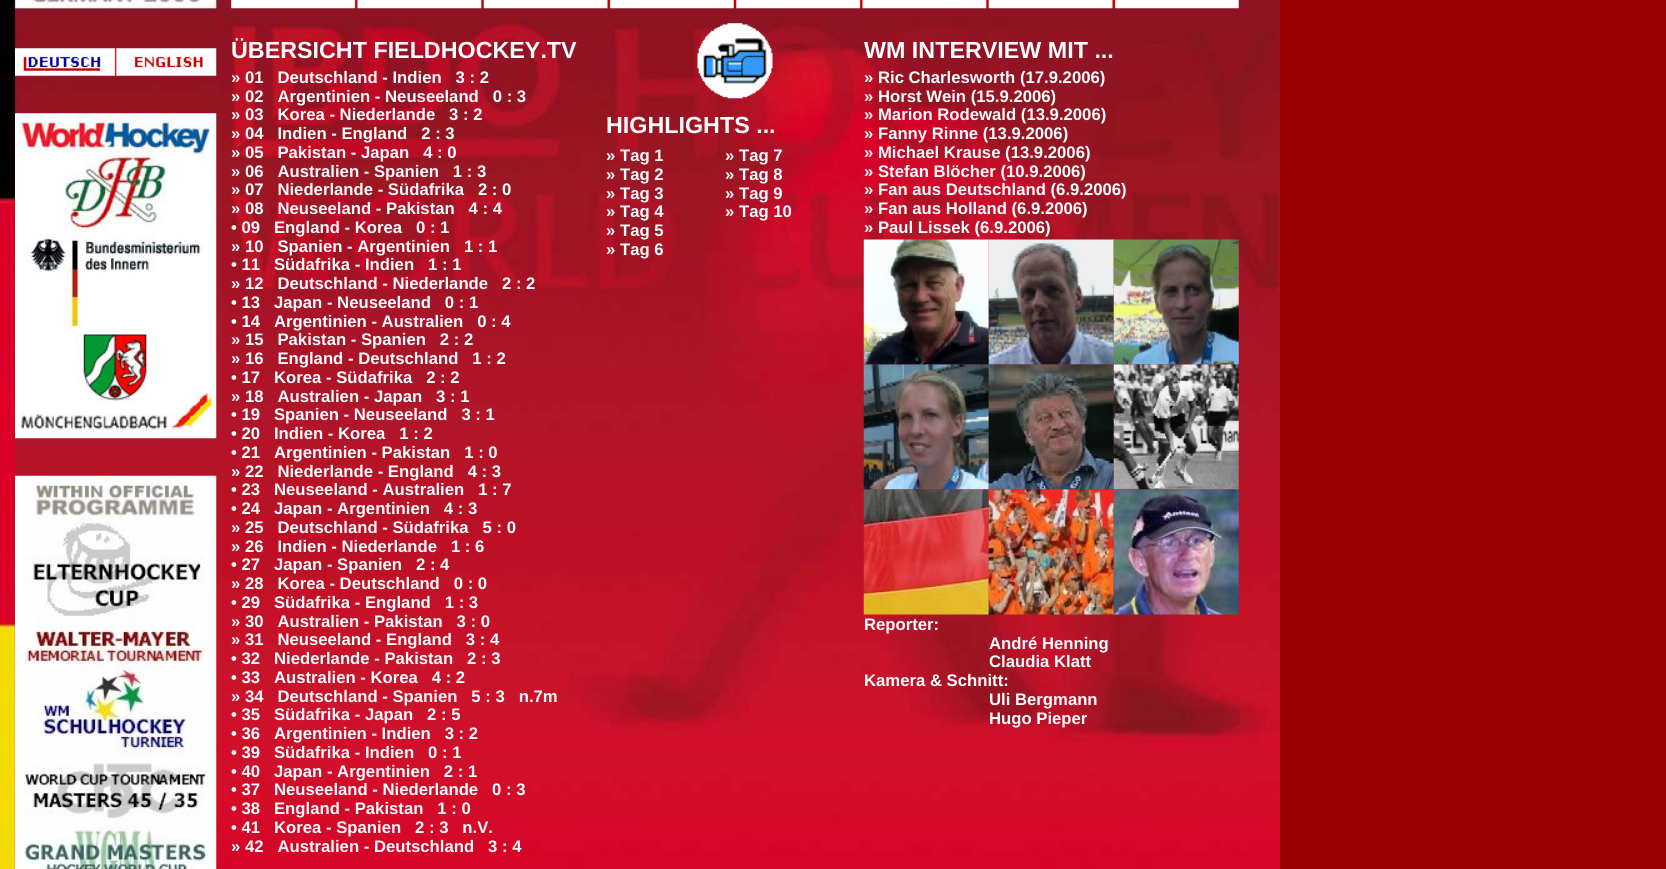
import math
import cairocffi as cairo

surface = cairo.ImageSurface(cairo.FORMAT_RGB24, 1666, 869)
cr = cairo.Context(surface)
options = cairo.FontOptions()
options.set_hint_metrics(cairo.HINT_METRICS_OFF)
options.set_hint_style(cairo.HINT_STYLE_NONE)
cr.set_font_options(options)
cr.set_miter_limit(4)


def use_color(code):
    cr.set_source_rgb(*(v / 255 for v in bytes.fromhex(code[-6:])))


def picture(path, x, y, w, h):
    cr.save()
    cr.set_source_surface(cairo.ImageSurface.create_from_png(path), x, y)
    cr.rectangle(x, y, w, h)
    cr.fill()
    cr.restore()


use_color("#990000")
cr.paint()
picture("img1.png", 0, 0, 1280, 869)
picture("img2.png", 231, 0, 126, 9)
picture("img3.png", 356, 0, 127, 9)
picture("img4.png", 482, 0, 127, 9)
picture("img5.png", 609, 0, 126, 9)
picture("img6.png", 735, 0, 127, 9)
picture("img3.png", 861, 0, 127, 9)
picture("img4.png", 987, 0, 127, 9)
picture("img7.png", 1114, 0, 125, 9)
picture("img8.png", 15, 48, 202, 28)
picture("img9.png", 15, 113, 202, 326)
picture("img10.png", 15, 475, 202, 394)
cr.select_font_face("Liberation Sans", cairo.FONT_SLANT_NORMAL, cairo.FONT_WEIGHT_BOLD)
cr.set_font_size(23.3)
use_color("#ffffff")
cr.move_to(231, 58)
cr.show_text("ÜBERSICHT FIELDHOCKEY.TV")
cr.set_font_size(16.7)
cr.move_to(231, 83)
cr.show_text("» 01   Deutschland - Indien   3 : 2")
cr.move_to(231, 102)
cr.show_text("» 02   Argentinien - Neuseeland   0 : 3")
cr.move_to(231, 120)
cr.show_text("» 03   Korea - Niederlande   3 : 2")
cr.move_to(231, 139)
cr.show_text("» 04   Indien - England   2 : 3")
cr.move_to(231, 158)
cr.show_text("» 05   Pakistan - Japan   4 : 0")
cr.move_to(231, 177)
cr.show_text("» 06   Australien - Spanien   1 : 3")
cr.move_to(231, 195)
cr.show_text("» 07   Niederlande - Südafrika   2 : 0")
cr.move_to(231, 214)
cr.show_text("» 08   Neuseeland - Pakistan   4 : 4")
cr.move_to(231, 233)
cr.show_text("• 09   England - Korea   0 : 1")
cr.move_to(231, 252)
cr.show_text("» 10   Spanien - Argentinien   1 : 1")
cr.move_to(231, 270)
cr.show_text("• 11   Südafrika - Indien   1 : 1")
cr.move_to(231, 289)
cr.show_text("» 12   Deutschland - Niederlande   2 : 2")
cr.move_to(231, 308)
cr.show_text("• 13   Japan - Neuseeland   0 : 1")
cr.move_to(231, 327)
cr.show_text("• 14   Argentinien - Australien   0 : 4")
cr.move_to(231, 345)
cr.show_text("» 15   Pakistan - Spanien   2 : 2")
cr.move_to(231, 364)
cr.show_text("» 16   England - Deutschland   1 : 2")
cr.move_to(231, 383)
cr.show_text("• 17   Korea - Südafrika   2 : 2")
cr.move_to(231, 402)
cr.show_text("» 18   Australien - Japan   3 : 1")
cr.move_to(231, 420)
cr.show_text("• 19   Spanien - Neuseeland   3 : 1")
cr.move_to(231, 439)
cr.show_text("• 20   Indien - Korea   1 : 2")
cr.move_to(231, 458)
cr.show_text("• 21   Argentinien - Pakistan   1 : 0")
cr.move_to(231, 477)
cr.show_text("» 22   Niederlande - England   4 : 3")
cr.move_to(231, 495)
cr.show_text("• 23   Neuseeland - Australien   1 : 7")
cr.move_to(231, 514)
cr.show_text("• 24   Japan - Argentinien   4 : 3")
cr.move_to(231, 533)
cr.show_text("» 25   Deutschland - Südafrika   5 : 0")
cr.move_to(231, 552)
cr.show_text("» 26   Indien - Niederlande   1 : 6")
cr.move_to(231, 570)
cr.show_text("• 27   Japan - Spanien   2 : 4")
cr.move_to(231, 589)
cr.show_text("» 28   Korea - Deutschland   0 : 0")
cr.move_to(231, 608)
cr.show_text("• 29   Südafrika - England   1 : 3")
cr.move_to(231, 627)
cr.show_text("» 30   Australien - Pakistan   3 : 0")
cr.move_to(231, 645)
cr.show_text("» 31   Neuseeland - England   3 : 4")
cr.move_to(231, 664)
cr.show_text("• 32   Niederlande - Pakistan   2 : 3")
cr.move_to(231, 683)
cr.show_text("• 33   Australien - Korea   4 : 2")
cr.move_to(231, 702)
cr.show_text("» 34   Deutschland - Spanien   5 : 3   n.7m")
cr.move_to(231, 720)
cr.show_text("• 35   Südafrika - Japan   2 : 5")
cr.move_to(231, 739)
cr.show_text("• 36   Argentinien - Indien   3 : 2")
cr.move_to(231, 758)
cr.show_text("• 39   Südafrika - Indien   0 : 1")
cr.move_to(231, 777)
cr.show_text("• 40   Japan - Argentinien   2 : 1")
cr.move_to(231, 795)
cr.show_text("• 37   Neuseeland - Niederlande   0 : 3")
cr.move_to(231, 814)
cr.show_text("• 38   England - Pakistan   1 : 0")
cr.move_to(231, 833)
cr.show_text("• 41   Korea - Spanien   2 : 3   n.V.")
cr.move_to(231, 852)
cr.show_text("» 42   Australien - Deutschland   3 : 4")
picture("img11.png", 697, 23, 76, 76)
cr.set_font_size(23.3)
cr.move_to(606, 133)
cr.show_text("HIGHLIGHTS ...")
cr.set_font_size(16.7)
cr.move_to(606, 161)
cr.show_text("» Tag 1")
cr.move_to(606, 180)
cr.show_text("» Tag 2")
cr.move_to(606, 199)
cr.show_text("» Tag 3")
cr.move_to(606, 217)
cr.show_text("» Tag 4")
cr.move_to(606, 236)
cr.show_text("» Tag 5")
cr.move_to(606, 255)
cr.show_text("» Tag 6")
cr.move_to(725, 161)
cr.show_text("» Tag 7")
cr.move_to(725, 180)
cr.show_text("» Tag 8")
cr.move_to(725, 199)
cr.show_text("» Tag 9")
cr.move_to(725, 217)
cr.show_text("» Tag 10")
cr.set_font_size(23.3)
cr.move_to(864, 58)
cr.show_text("WM INTERVIEW MIT ...")
cr.set_font_size(16.7)
cr.move_to(864, 83)
cr.show_text("» Ric Charlesworth (17.9.2006)")
cr.move_to(864, 102)
cr.show_text("» Horst Wein (15.9.2006)")
cr.move_to(864, 120)
cr.show_text("» Marion Rodewald (13.9.2006)")
cr.move_to(864, 139)
cr.show_text("» Fanny Rinne (13.9.2006)")
cr.move_to(864, 158)
cr.show_text("» Michael Krause (13.9.2006)")
cr.move_to(864, 177)
cr.show_text("» Stefan Blöcher (10.9.2006)")
cr.move_to(864, 195)
cr.show_text("» Fan aus Deutschland (6.9.2006)")
cr.move_to(864, 214)
cr.show_text("» Fan aus Holland (6.9.2006)")
cr.move_to(864, 233)
cr.show_text("» Paul Lissek (6.9.2006)")
picture("img12.png", 863, 239, 126, 126)
picture("img13.png", 988, 239, 126, 126)
picture("img14.png", 1113, 239, 126, 126)
picture("img15.png", 863, 364, 126, 126)
picture("img16.png", 988, 364, 126, 126)
picture("img17.png", 1113, 364, 126, 126)
picture("img18.png", 863, 489, 126, 126)
picture("img19.png", 988, 489, 126, 126)
picture("img20.png", 1113, 489, 126, 126)
cr.move_to(864, 630)
cr.show_text("Reporter:")
cr.move_to(989, 649)
cr.show_text("André Henning")
cr.move_to(989, 667)
cr.show_text("Claudia Klatt")
cr.move_to(864, 686)
cr.show_text("Kamera & Schnitt:")
cr.move_to(989, 705)
cr.show_text("Uli Bergmann")
cr.move_to(989, 724)
cr.show_text("Hugo Pieper")
surface.write_to_png("result.png")
